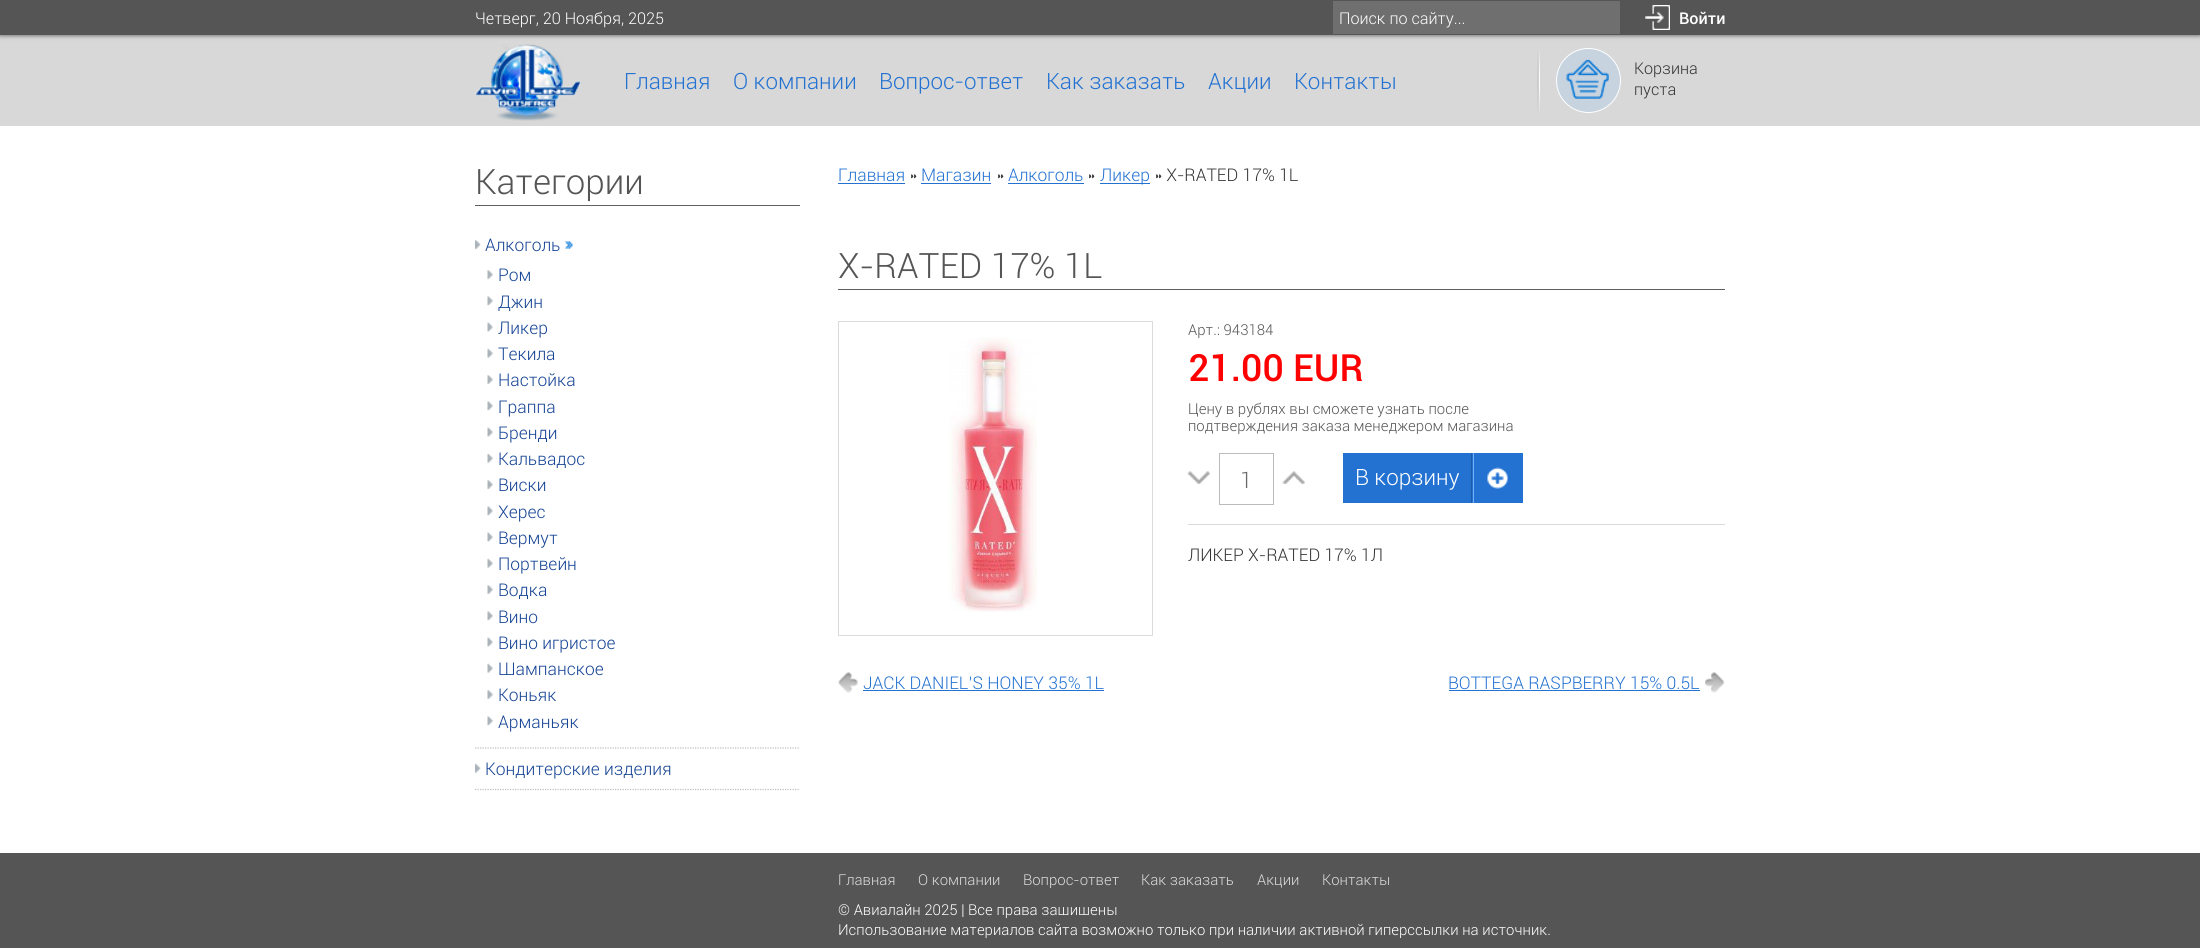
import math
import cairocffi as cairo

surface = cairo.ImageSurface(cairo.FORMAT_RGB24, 2200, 948)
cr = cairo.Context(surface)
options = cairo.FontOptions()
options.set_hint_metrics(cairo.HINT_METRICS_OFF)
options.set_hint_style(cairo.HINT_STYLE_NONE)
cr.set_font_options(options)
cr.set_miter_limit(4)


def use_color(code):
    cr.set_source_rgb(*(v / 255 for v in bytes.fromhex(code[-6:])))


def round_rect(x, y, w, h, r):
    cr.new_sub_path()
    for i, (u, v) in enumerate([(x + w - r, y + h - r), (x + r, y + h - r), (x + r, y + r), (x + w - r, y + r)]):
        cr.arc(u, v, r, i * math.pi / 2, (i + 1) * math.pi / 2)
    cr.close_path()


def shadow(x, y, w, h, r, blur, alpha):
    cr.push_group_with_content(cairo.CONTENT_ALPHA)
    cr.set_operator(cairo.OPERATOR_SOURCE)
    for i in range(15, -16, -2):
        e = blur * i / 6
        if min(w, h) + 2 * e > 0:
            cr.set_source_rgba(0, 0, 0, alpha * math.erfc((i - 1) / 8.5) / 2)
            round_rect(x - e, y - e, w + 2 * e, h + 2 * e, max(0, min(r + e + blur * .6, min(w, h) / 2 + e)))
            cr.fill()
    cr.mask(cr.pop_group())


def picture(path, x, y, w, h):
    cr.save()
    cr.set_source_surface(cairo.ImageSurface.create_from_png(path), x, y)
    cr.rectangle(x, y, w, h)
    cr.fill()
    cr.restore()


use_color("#ffffff")
cr.paint()
use_color("#d8d8d8")
cr.rectangle(0, 35, 2200, 91)
cr.fill()
use_color("#777777")
shadow(0, 1, 2200, 35, 0, 2, 1)
use_color("#555555")
cr.rectangle(0, 0, 2200, 35)
cr.fill()
cr.select_font_face("Roboto Light")
cr.set_font_size(16.25)
use_color("#ffffff")
cr.move_to(475, 24)
cr.show_text("Четверг, 20 Ноября, 2025")
use_color("#6f6f6f")
cr.rectangle(1333, 1, 287, 33)
cr.fill()
use_color("#ffffff")
cr.move_to(1339, 24)
cr.show_text("Поиск по сайту...")
picture("img1.png", 1645, 5, 25, 25)
cr.select_font_face("Roboto Medium")
cr.move_to(1679, 24)
cr.show_text("Войти")
picture("img2.png", 475, 44, 106, 77)
cr.select_font_face("Roboto Light")
cr.set_font_size(22.5)
use_color("#2372d2")
cr.move_to(624, 89)
cr.show_text("Главная")
cr.move_to(733, 89)
cr.show_text("О компании")
cr.move_to(879, 89)
cr.show_text("Вопрос-ответ")
cr.move_to(1046, 89)
cr.show_text("Как заказать")
cr.move_to(1208, 89)
cr.show_text("Акции")
cr.move_to(1294, 89)
cr.show_text("Контакты")
picture("img3.png", 1537, 50, 3, 62)
use_color("#c7d3de")
cr.arc(1588.5, 80.5, 32.5, 0, 2 * math.pi)
cr.fill()
picture("img4.png", 1566, 59, 43, 40)
cr.arc(1588.5, 80.5, 32, 0, 2 * math.pi)
use_color("#ffffff")
cr.set_line_width(1)
cr.stroke()
cr.set_font_size(16.25)
use_color("#333333")
cr.move_to(1634, 74)
cr.show_text("Корзина")
cr.move_to(1634, 95)
cr.show_text("пуста")
use_color("#606060")
cr.rectangle(475, 205, 325, 1)
cr.fill()
cr.set_font_size(35)
use_color("#555555")
cr.move_to(475, 194)
cr.show_text("Категории")
cr.new_path()
cr.move_to(475, 748)
cr.line_to(800, 748)
use_color("#b9bec3")
cr.set_line_width(1.2)
cr.set_dash([1.25, 1.25])
cr.stroke()
picture("img5.png", 475, 240, 6, 10)
cr.set_font_size(17.5)
use_color("#154394")
cr.move_to(485, 251)
cr.show_text("Алкоголь")
picture("img6.png", 565, 241, 8, 8)
picture("img7.png", 487, 270, 7, 10)
cr.move_to(498, 281)
cr.show_text("Ром")
picture("img8.png", 487, 296, 6, 10)
cr.move_to(498, 308)
cr.show_text("Джин")
picture("img9.png", 487, 322, 6, 10)
cr.move_to(498, 334)
cr.show_text("Ликер")
picture("img10.png", 487, 348, 6, 11)
cr.move_to(498, 360)
cr.show_text("Текила")
picture("img7.png", 487, 375, 7, 10)
cr.move_to(498, 386)
cr.show_text("Настойка")
picture("img8.png", 487, 401, 6, 10)
cr.move_to(498, 413)
cr.show_text("Граппа")
picture("img9.png", 487, 427, 6, 10)
cr.move_to(498, 439)
cr.show_text("Бренди")
picture("img10.png", 487, 453, 6, 11)
cr.move_to(498, 465)
cr.show_text("Кальвадос")
picture("img7.png", 487, 480, 7, 10)
cr.move_to(498, 491)
cr.show_text("Виски")
picture("img8.png", 487, 506, 6, 10)
cr.move_to(498, 518)
cr.show_text("Херес")
picture("img9.png", 487, 532, 6, 10)
cr.move_to(498, 544)
cr.show_text("Вермут")
picture("img10.png", 487, 558, 6, 11)
cr.move_to(498, 570)
cr.show_text("Портвейн")
picture("img11.png", 487, 585, 7, 10)
cr.move_to(498, 596)
cr.show_text("Водка")
picture("img8.png", 487, 611, 6, 10)
cr.move_to(498, 623)
cr.show_text("Вино")
picture("img9.png", 487, 637, 6, 10)
cr.move_to(498, 649)
cr.show_text("Вино игристое")
picture("img10.png", 487, 663, 6, 11)
cr.move_to(498, 675)
cr.show_text("Шампанское")
picture("img7.png", 487, 690, 7, 10)
cr.move_to(498, 701)
cr.show_text("Коньяк")
picture("img8.png", 487, 716, 6, 10)
cr.move_to(498, 728)
cr.show_text("Арманьяк")
cr.new_path()
cr.move_to(475, 789.5)
cr.line_to(800, 789.5)
use_color("#b9bec3")
cr.stroke()
picture("img12.png", 475, 763, 6, 11)
use_color("#154394")
cr.move_to(485, 775)
cr.show_text("Кондитерские изделия")
use_color("#2372d2")
cr.move_to(838, 181)
cr.show_text("Главная")
cr.rectangle(838, 183, 67, 1)
cr.fill()
use_color("#333333")
cr.move_to(909, 181)
cr.show_text("»")
use_color("#2372d2")
cr.move_to(921, 181)
cr.show_text("Магазин")
cr.rectangle(921, 183, 70, 1)
cr.fill()
use_color("#333333")
cr.move_to(996, 181)
cr.show_text("»")
use_color("#2372d2")
cr.move_to(1008, 181)
cr.show_text("Алкоголь")
cr.rectangle(1008, 183, 76, 1)
cr.fill()
use_color("#333333")
cr.move_to(1087, 181)
cr.show_text("»")
use_color("#2372d2")
cr.rectangle(1100, 183, 50, 1)
cr.fill()
cr.move_to(1100, 181)
cr.show_text("Ликер")
use_color("#333333")
cr.move_to(1154, 181)
cr.show_text("» X-RATED 17% 1L")
use_color("#606060")
cr.rectangle(838, 289, 887, 1)
cr.fill()
cr.set_font_size(35)
use_color("#555555")
cr.move_to(838, 278)
cr.show_text("X-RATED 17% 1L")
cr.rectangle(838.5, 321.5, 314, 314)
use_color("#dbdbdb")
cr.set_line_width(1)
cr.set_dash([])
cr.stroke()
picture("img13.png", 949, 337, 88, 275)
cr.set_font_size(15)
use_color("#555555")
cr.move_to(1188, 335)
cr.show_text("Арт.: 943184")
cr.select_font_face("Roboto Medium")
cr.set_font_size(37.5)
use_color("#ff0000")
cr.move_to(1188, 381)
cr.show_text("21.00 EUR")
cr.select_font_face("Roboto Light")
cr.set_font_size(15)
use_color("#555555")
cr.move_to(1188, 414)
cr.show_text("Цену в рублях вы сможете узнать после")
cr.move_to(1188, 431)
cr.show_text("подтверждения заказа менеджером магазина")
use_color("#dadada")
cr.rectangle(1188, 524, 537, 1)
cr.fill()
picture("img14.png", 1187, 471, 23, 13)
cr.rectangle(1219.5, 453.5, 54, 51)
use_color("#bbbbbb")
cr.stroke()
cr.set_font_size(22.5)
use_color("#696969")
cr.move_to(1240, 488)
cr.show_text("1")
picture("img15.png", 1282, 471, 23, 13)
use_color("#2372d2")
cr.rectangle(1343, 453, 180, 50)
cr.fill()
use_color("#ffffff")
cr.move_to(1355, 485)
cr.show_text("В корзину")
picture("img16.png", 1487, 467, 21, 22)
use_color("#75b0f8")
cr.rectangle(1473, 453, 1, 50)
cr.fill()
use_color("#1d5ca9")
cr.rectangle(1471, 453, 1, 50)
cr.fill()
cr.set_font_size(17.5)
use_color("#333333")
cr.move_to(1188, 561)
cr.show_text("ЛИКЕР X-RATED 17% 1Л")
picture("img17.png", 838, 672, 20, 21)
use_color("#2372d2")
cr.move_to(863, 689)
cr.show_text("JACK DANIEL’S HONEY 35% 1L")
cr.rectangle(863, 690, 241, 1)
cr.fill()
picture("img18.png", 1705, 672, 19, 21)
cr.move_to(1448, 689)
cr.show_text("BOTTEGA RASPBERRY 15% 0.5L")
cr.rectangle(1449, 690, 251, 1)
cr.fill()
use_color("#555555")
cr.rectangle(0, 853, 2200, 95)
cr.fill()
cr.set_font_size(15)
use_color("#dbdbdb")
cr.move_to(838, 885)
cr.show_text("Главная")
cr.move_to(918, 885)
cr.show_text("О компании")
cr.move_to(1023, 885)
cr.show_text("Вопрос-ответ")
cr.move_to(1141, 885)
cr.show_text("Как заказать")
cr.move_to(1257, 885)
cr.show_text("Акции")
cr.move_to(1322, 885)
cr.show_text("Контакты")
use_color("#ffffff")
cr.move_to(838, 915)
cr.show_text("© Авиалайн 2025 | Все права защищены")
cr.move_to(838, 935)
cr.show_text("Использование материалов сайта возможно только при наличии активной гиперссылки на источник.")
surface.write_to_png("result.png")
